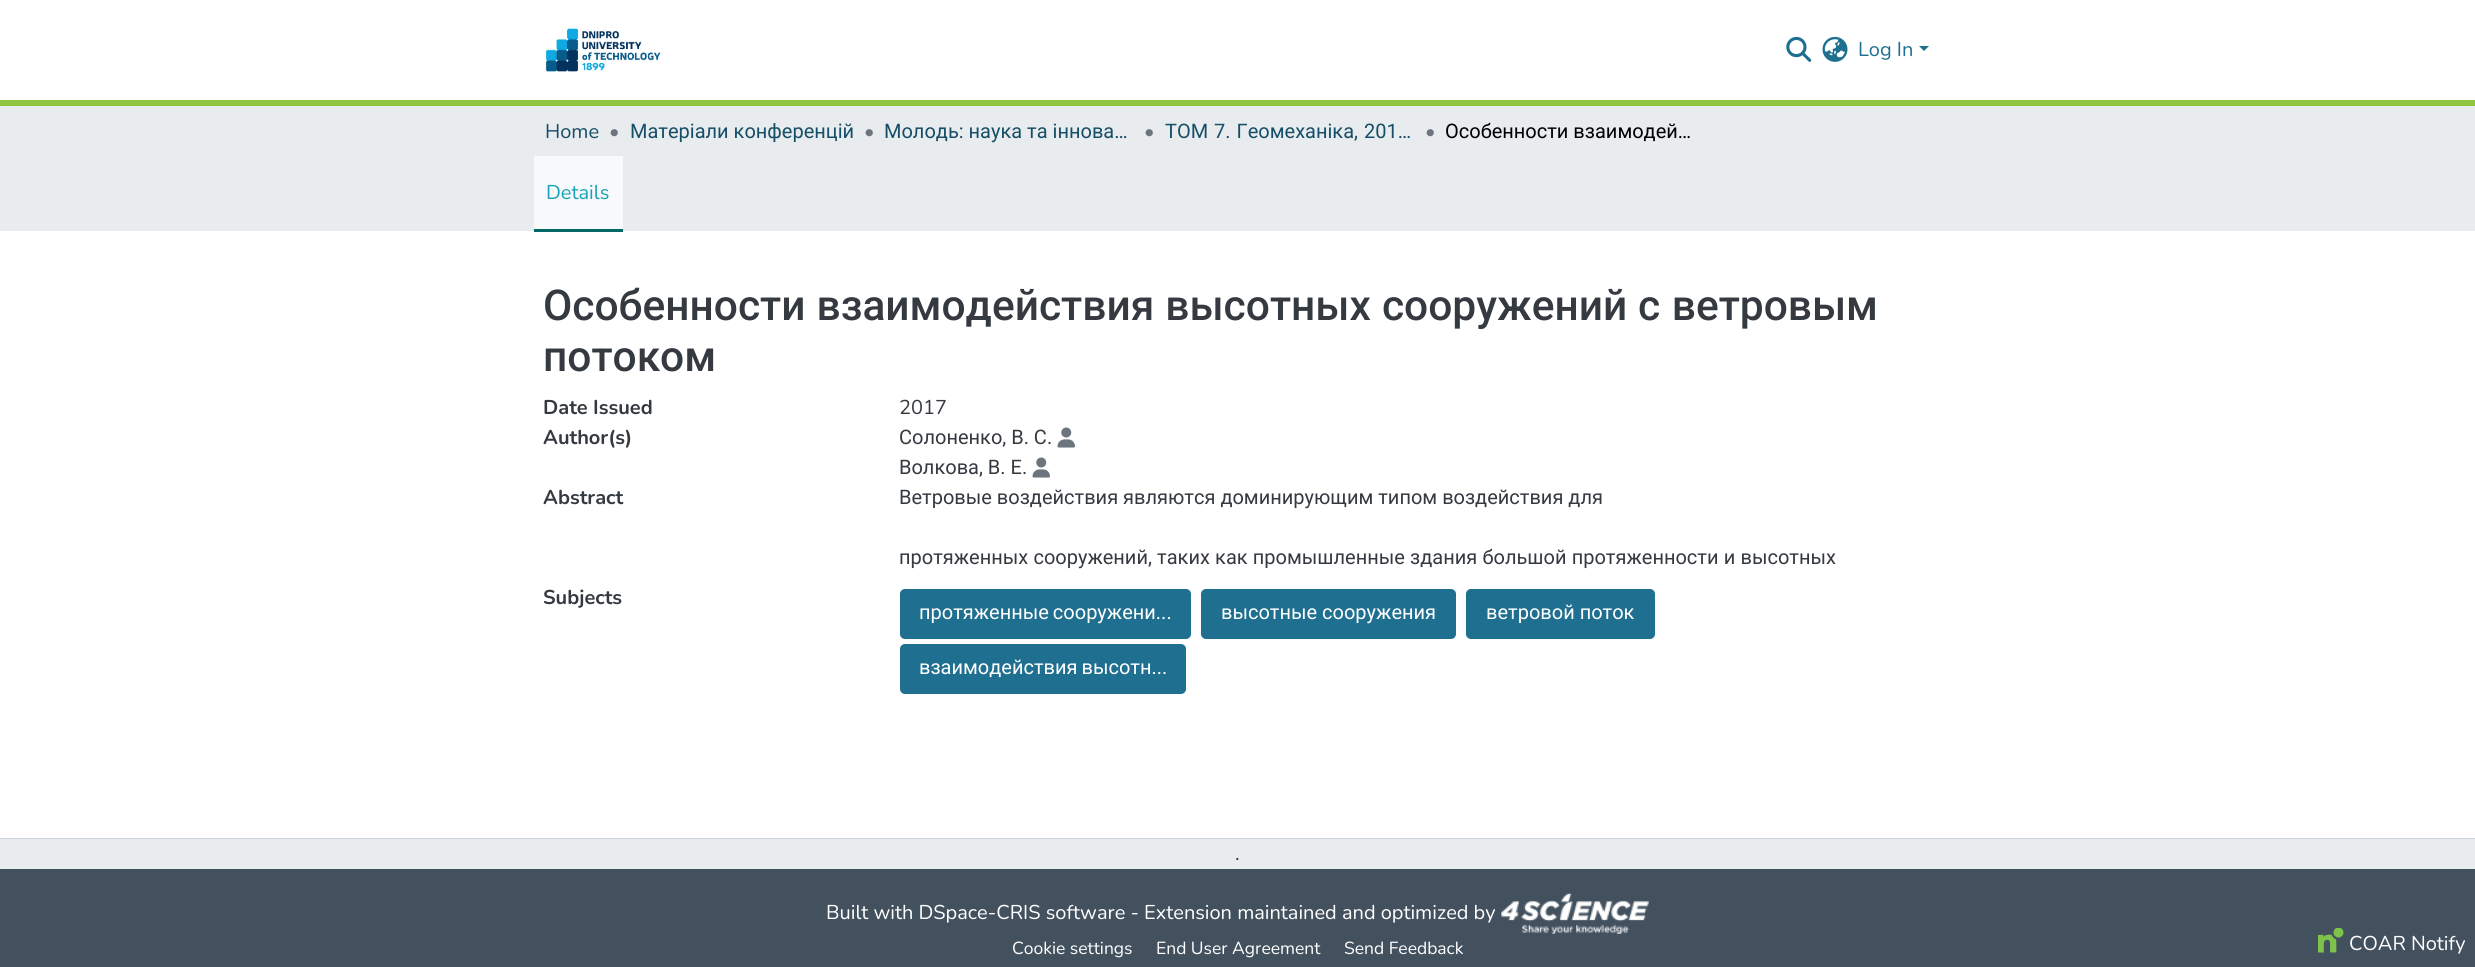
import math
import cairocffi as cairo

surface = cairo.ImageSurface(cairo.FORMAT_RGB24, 2475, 967)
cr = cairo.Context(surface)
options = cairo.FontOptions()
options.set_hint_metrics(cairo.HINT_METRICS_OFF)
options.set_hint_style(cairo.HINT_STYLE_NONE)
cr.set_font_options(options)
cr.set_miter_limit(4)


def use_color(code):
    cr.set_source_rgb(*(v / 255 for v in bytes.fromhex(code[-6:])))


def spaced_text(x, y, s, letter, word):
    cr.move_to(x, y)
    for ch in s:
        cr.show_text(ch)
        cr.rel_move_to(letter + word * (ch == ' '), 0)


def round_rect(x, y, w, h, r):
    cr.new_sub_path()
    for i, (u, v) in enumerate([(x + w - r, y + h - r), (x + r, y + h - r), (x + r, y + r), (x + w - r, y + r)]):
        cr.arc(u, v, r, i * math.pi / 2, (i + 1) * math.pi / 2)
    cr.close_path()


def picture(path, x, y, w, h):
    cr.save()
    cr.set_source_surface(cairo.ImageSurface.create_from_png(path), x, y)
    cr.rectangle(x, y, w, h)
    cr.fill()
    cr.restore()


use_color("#ffffff")
cr.paint()
use_color("#92c642")
cr.rectangle(0, 100, 2475, 6)
cr.fill()
picture("img1.png", 545, 28, 116, 44)
picture("img2.png", 1786, 36, 26, 26)
picture("img3.png", 1822, 36, 26, 26)
cr.select_font_face("Nunito")
cr.set_font_size(20)
use_color("#1e6f90")
cr.move_to(1858, 56)
cr.show_text("Log In")
cr.new_path()
cr.move_to(1919, 46)
cr.line_to(1929, 46)
cr.line_to(1924, 51)
cr.close_path()
cr.fill()
use_color("#e9ecef")
cr.rectangle(0, 106, 2475, 125)
cr.fill()
use_color("#154e66")
cr.move_to(545, 138)
cr.show_text("Home")
use_color("#6c757d")
cr.move_to(609, 138)
cr.show_text("•")
cr.select_font_face("Roboto")
use_color("#154e66")
cr.move_to(630, 138)
cr.show_text("Матеріали конференцій")
cr.select_font_face("Nunito")
use_color("#6c757d")
cr.move_to(864, 138)
cr.show_text("•")
cr.select_font_face("Roboto")
use_color("#154e66")
cr.move_to(884, 138)
cr.show_text("Молодь: наука та іннова…")
cr.select_font_face("Nunito")
use_color("#6c757d")
cr.move_to(1144, 138)
cr.show_text("•")
cr.select_font_face("Roboto")
use_color("#154e66")
spaced_text(1165, 138, "ТОМ 7. Геомеханіка, 201…", 0, 1)
cr.select_font_face("Nunito")
use_color("#6c757d")
cr.move_to(1425, 138)
cr.show_text("•")
cr.select_font_face("Roboto")
use_color("#000000")
cr.move_to(1445, 138)
cr.show_text("Особенности взаимодей…")
use_color("#006666")
cr.rectangle(534, 229, 89, 3)
cr.fill()
use_color("#f8f9fa")
cr.rectangle(534, 156, 89, 73)
cr.fill()
cr.select_font_face("Nunito")
use_color("#17a2b8")
cr.move_to(546, 199)
cr.show_text("Details")
cr.select_font_face("Roboto Medium")
cr.set_font_size(42.5)
use_color("#343a40")
spaced_text(543, 320, "Особенности взаимодействия высотных сооружений", 0, 0.5)
spaced_text(1638, 320, "с ветровым", 0, 1)
cr.move_to(543, 371)
cr.show_text("потоком")
cr.select_font_face("Nunito", cairo.FONT_SLANT_NORMAL, cairo.FONT_WEIGHT_BOLD)
cr.set_font_size(20)
cr.move_to(543, 414)
cr.show_text("Date Issued")
cr.select_font_face("Nunito")
cr.move_to(899, 414)
cr.show_text("2017")
cr.select_font_face("Nunito", cairo.FONT_SLANT_NORMAL, cairo.FONT_WEIGHT_BOLD)
cr.move_to(543, 444)
cr.show_text("Author(s)")
cr.select_font_face("Roboto")
cr.move_to(899, 444)
cr.show_text("Солоненко, В. С.")
picture("img4.png", 1057, 427, 18, 21)
cr.move_to(899, 474)
cr.show_text("Волкова, В. Е.")
picture("img4.png", 1032, 457, 18, 21)
cr.select_font_face("Nunito", cairo.FONT_SLANT_NORMAL, cairo.FONT_WEIGHT_BOLD)
cr.move_to(543, 504)
cr.show_text("Abstract")
cr.select_font_face("Roboto")
cr.move_to(899, 504)
cr.show_text("Ветровые воздействия являются доминирующим типом воздействия для")
spaced_text(899, 564, "протяженных сооружений, таких как промышленные здания большой протяженности и высотных", 0, 0.25)
cr.select_font_face("Nunito", cairo.FONT_SLANT_NORMAL, cairo.FONT_WEIGHT_BOLD)
cr.move_to(543, 604)
cr.show_text("Subjects")
use_color("#1e6f90")
round_rect(900, 589, 291, 50, 5)
cr.fill()
cr.select_font_face("Roboto")
use_color("#ffffff")
spaced_text(919, 619, "протяженные сооружени...", 0, -1)
use_color("#1e6f90")
round_rect(1201, 589, 255, 50, 5)
cr.fill()
use_color("#ffffff")
cr.move_to(1221, 619)
cr.show_text("высотные сооружения")
use_color("#1e6f90")
round_rect(1466, 589, 189, 50, 5)
cr.fill()
use_color("#ffffff")
cr.move_to(1486, 619)
cr.show_text("ветровой поток")
use_color("#1e6f90")
round_rect(900, 644, 286, 50, 5)
cr.fill()
use_color("#ffffff")
spaced_text(919, 674, "взаимодействия высотн...", 0, -1)
use_color("#43515f")
cr.rectangle(0, 869, 2475, 98)
cr.fill()
use_color("#ced4da")
cr.rectangle(0, 838, 2475, 1)
cr.fill()
use_color("#e9ecef")
cr.rectangle(0, 839, 2475, 30)
cr.fill()
cr.select_font_face("Nunito")
use_color("#343a40")
cr.move_to(1235, 860)
cr.show_text(".")
use_color("#ffffff")
cr.move_to(826, 919)
cr.show_text("Built with DSpace-CRIS software - Extension maintained and optimized by")
picture("img5.png", 1501, 893, 148, 41)
cr.set_font_size(17.5)
cr.move_to(1012, 954)
cr.show_text("Cookie settings")
use_color("#495057")
cr.rectangle(1144, 934, 1, 29)
cr.fill()
use_color("#ffffff")
cr.move_to(1156, 954)
cr.show_text("End User Agreement")
use_color("#495057")
cr.rectangle(1331, 934, 1, 29)
cr.fill()
use_color("#ffffff")
cr.move_to(1344, 954)
cr.show_text("Send Feedback")
picture("img6.png", 2318, 928, 26, 25)
cr.set_font_size(20)
cr.move_to(2349, 950)
cr.show_text("COAR Notify")
surface.write_to_png("result.png")
